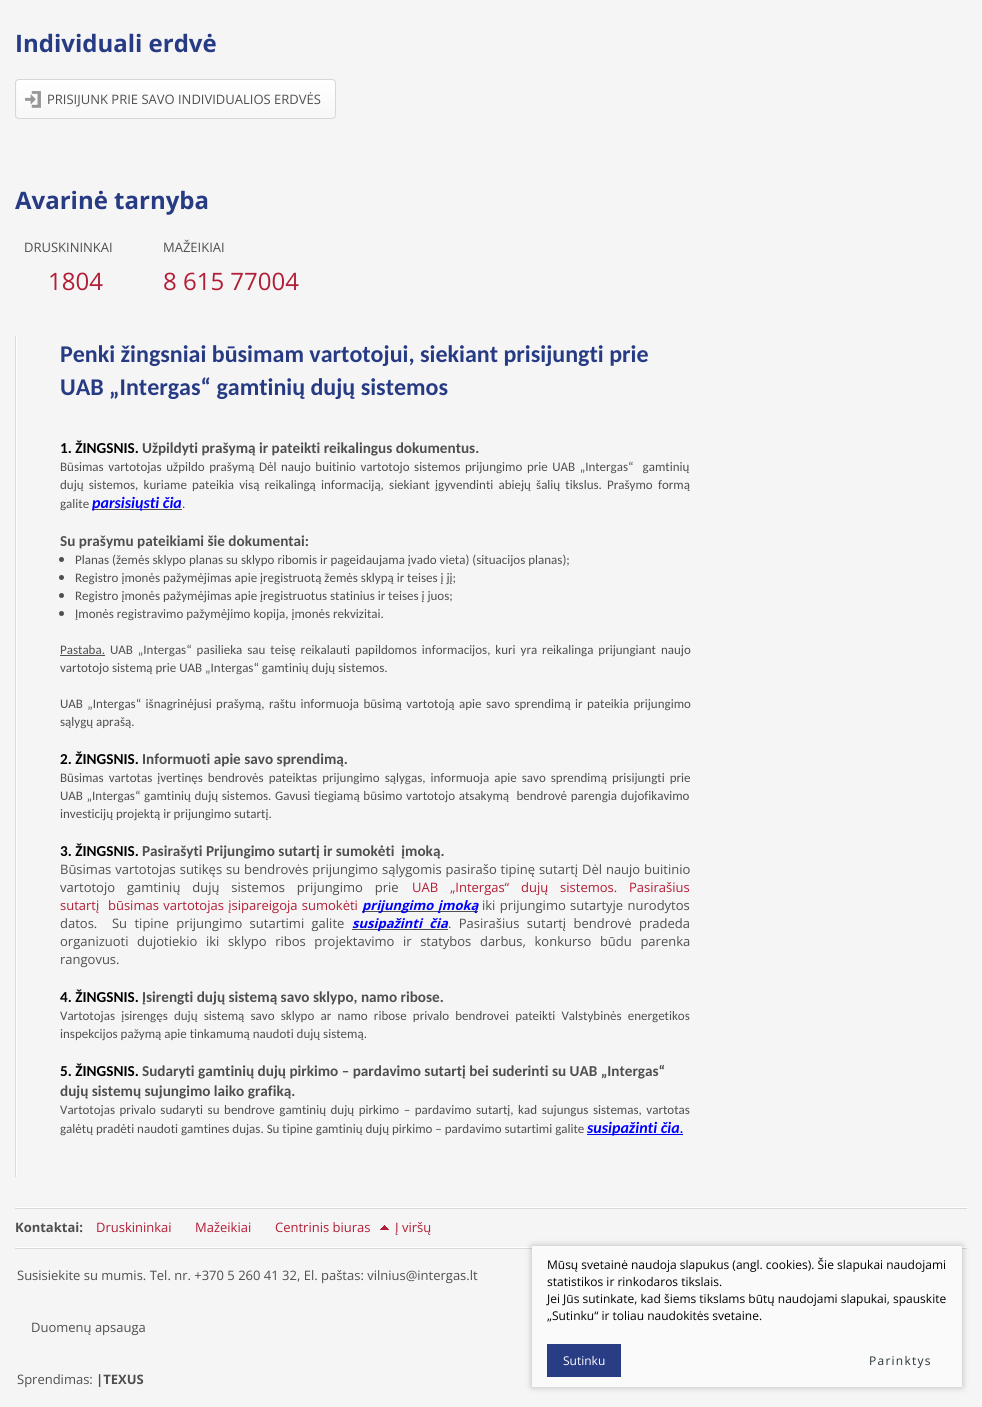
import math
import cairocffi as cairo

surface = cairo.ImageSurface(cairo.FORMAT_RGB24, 982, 1407)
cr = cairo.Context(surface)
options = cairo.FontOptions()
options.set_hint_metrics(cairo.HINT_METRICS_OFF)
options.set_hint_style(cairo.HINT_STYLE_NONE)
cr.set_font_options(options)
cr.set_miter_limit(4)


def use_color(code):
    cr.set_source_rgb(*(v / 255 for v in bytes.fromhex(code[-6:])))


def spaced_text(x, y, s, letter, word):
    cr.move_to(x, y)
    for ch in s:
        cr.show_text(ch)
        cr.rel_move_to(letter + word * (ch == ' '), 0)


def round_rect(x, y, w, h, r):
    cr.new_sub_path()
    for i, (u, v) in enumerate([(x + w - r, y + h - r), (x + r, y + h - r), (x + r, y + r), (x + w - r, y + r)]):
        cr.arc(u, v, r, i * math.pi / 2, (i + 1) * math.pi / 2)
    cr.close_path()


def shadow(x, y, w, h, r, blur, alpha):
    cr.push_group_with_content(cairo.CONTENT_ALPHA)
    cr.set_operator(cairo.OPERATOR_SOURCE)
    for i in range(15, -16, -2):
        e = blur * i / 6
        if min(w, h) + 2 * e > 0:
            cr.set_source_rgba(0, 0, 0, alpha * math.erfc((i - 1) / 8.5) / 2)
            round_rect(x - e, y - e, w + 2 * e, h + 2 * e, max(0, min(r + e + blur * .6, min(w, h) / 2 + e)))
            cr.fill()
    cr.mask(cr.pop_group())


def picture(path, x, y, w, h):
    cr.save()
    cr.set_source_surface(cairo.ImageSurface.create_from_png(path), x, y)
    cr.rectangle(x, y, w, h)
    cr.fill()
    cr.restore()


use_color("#f5f5f5")
cr.paint()
cr.select_font_face("Open Sans", cairo.FONT_SLANT_NORMAL, cairo.FONT_WEIGHT_BOLD)
cr.set_font_size(24)
use_color("#273b84")
cr.move_to(15, 52)
cr.show_text("Individuali erdvė")
picture("img1.png", 15, 79, 316, 40)
picture("img2.png", 25, 91, 16, 17)
cr.select_font_face("Open Sans")
cr.set_font_size(13)
use_color("#4f4f4f")
cr.move_to(47, 104)
cr.show_text("PRISIJUNK PRIE SAVO INDIVIDUALIOS ERDVĖS")
picture("img3.png", 331, 79, 5, 40)
cr.select_font_face("Open Sans", cairo.FONT_SLANT_NORMAL, cairo.FONT_WEIGHT_BOLD)
cr.set_font_size(24)
use_color("#273b84")
cr.move_to(15, 209)
cr.show_text("Avarinė tarnyba")
cr.select_font_face("Open Sans")
cr.set_font_size(13)
use_color("#4f4f4f")
cr.move_to(24, 252)
cr.show_text("DRUSKININKAI")
cr.move_to(163, 252)
cr.show_text("MAŽEIKIAI")
cr.set_font_size(24)
use_color("#b21e36")
cr.move_to(48, 290)
cr.show_text("1804")
cr.move_to(163, 290)
cr.show_text("8 615 77004")
picture("img4.png", 15, 336, 2, 841)
cr.select_font_face("Carlito", cairo.FONT_SLANT_NORMAL, cairo.FONT_WEIGHT_BOLD)
use_color("#273b84")
cr.move_to(60, 362)
cr.show_text("Penki žingsniai būsimam vartotojui, siekiant prisijungti prie")
cr.move_to(60, 395)
cr.show_text("UAB „Intergas“ gamtinių dujų sistemos")
cr.set_font_size(15.2)
use_color("#000000")
cr.move_to(60, 453)
cr.show_text("1. ŽINGSNIS.")
use_color("#4f4f4f")
cr.move_to(142, 453)
cr.show_text("Užpildyti prašymą ir pateikti reikalingus dokumentus.")
cr.select_font_face("Carlito")
cr.set_font_size(13)
spaced_text(60, 471, "Būsimas vartotojas užpildo prašymą Dėl naujo buitinio vartotojo sistemos prijungimo prie UAB „Intergas“  gamtinių", 0, 1.6)
spaced_text(60, 489, "dujų sistemos, kuriame pateikia visą reikalingą informaciją, siekiant įgyvendinti abiejų šalių tikslus. Prašymo formą", 0, 2.25)
cr.move_to(60, 508)
cr.show_text("galite")
cr.rectangle(92, 509, 90, 1)
cr.fill()
cr.select_font_face("Carlito", cairo.FONT_SLANT_ITALIC, cairo.FONT_WEIGHT_BOLD)
cr.set_font_size(16)
use_color("#0000ff")
cr.move_to(92, 508)
cr.show_text("parsisiųsti čia")
cr.select_font_face("Carlito")
cr.set_font_size(13)
use_color("#4f4f4f")
cr.move_to(182, 508)
cr.show_text(".")
cr.select_font_face("Carlito", cairo.FONT_SLANT_NORMAL, cairo.FONT_WEIGHT_BOLD)
cr.set_font_size(15.2)
cr.move_to(60, 546)
cr.show_text("Su prašymu pateikiami šie dokumentai:")
cr.new_path()
cr.arc(61.5, 559.5, 2.5, 0, 2 * math.pi)
cr.fill()
cr.select_font_face("Carlito")
cr.set_font_size(13)
cr.move_to(75, 564)
cr.show_text("Planas (žemės sklypo planas su sklypo ribomis ir pageidaujama įvado vieta) (situacijos planas);")
cr.new_path()
cr.arc(61.5, 577.5, 2.5, 0, 2 * math.pi)
cr.fill()
cr.move_to(75, 582)
cr.show_text("Registro įmonės pažymėjimas apie įregistruotą žemės sklypą ir teises į jį;")
cr.new_path()
cr.arc(61.5, 595.5, 2.5, 0, 2 * math.pi)
cr.fill()
cr.move_to(75, 600)
cr.show_text("Registro įmonės pažymėjimas apie įregistruotus statinius ir teises į juos;")
cr.new_path()
cr.arc(61.5, 613.5, 2.5, 0, 2 * math.pi)
cr.fill()
cr.move_to(75, 618)
cr.show_text("Įmonės registravimo pažymėjimo kopija, įmonės rekvizitai.")
cr.move_to(60, 654)
cr.show_text("Pastaba.")
cr.rectangle(60, 655, 45, 1)
cr.fill()
spaced_text(110, 654, "UAB „Intergas“ pasilieka sau teisę reikalauti papildomos informacijos, kuri yra reikalinga prijungiant naujo", 0, 2)
cr.move_to(60, 672)
cr.show_text("vartotojo sistemą prie UAB „Intergas“ gamtinių dujų sistemos.")
spaced_text(60, 708, "UAB „Intergas“ išnagrinėjusi prašymą, raštu informuoja būsimą vartotoją apie savo sprendimą ir pateikia prijungimo", 0, 1.5)
cr.move_to(60, 726)
cr.show_text("sąlygų aprašą.")
cr.select_font_face("Carlito", cairo.FONT_SLANT_NORMAL, cairo.FONT_WEIGHT_BOLD)
cr.set_font_size(15.2)
use_color("#000000")
cr.move_to(60, 764)
cr.show_text("2. ŽINGSNIS.")
use_color("#4f4f4f")
cr.move_to(142, 764)
cr.show_text("Informuoti apie savo sprendimą.")
cr.select_font_face("Carlito")
cr.set_font_size(13)
spaced_text(60, 782, "Būsimas vartotas įvertinęs bendrovės pateiktas prijungimo sąlygas, informuoja apie savo sprendimą prisijungti prie", 0, 2.1)
spaced_text(60, 800, "UAB „Intergas“ gamtinių dujų sistemos. Gavusi tiegiamą būsimo vartotojo atsakymą  bendrovė parengia dujofikavimo", 0, 0.75)
cr.move_to(60, 818)
cr.show_text("investicijų projektą ir prijungimo sutartį.")
cr.select_font_face("Carlito", cairo.FONT_SLANT_NORMAL, cairo.FONT_WEIGHT_BOLD)
cr.set_font_size(15.2)
use_color("#000000")
cr.move_to(60, 856)
cr.show_text("3. ŽINGSNIS.")
use_color("#4f4f4f")
cr.move_to(142, 856)
cr.show_text("Pasirašyti Prijungimo sutartį ir sumokėti  įmoką.")
cr.select_font_face("Open Sans")
cr.set_font_size(13)
spaced_text(60, 874, "Būsimas vartotojas sutikęs su bendrovės prijungimo sąlygomis pasirašo tipinę sutartį Dėl naujo buitinio", 0, 0.5)
spaced_text(60, 892, "vartotojo gamtinių dujų sistemos prijungimo prie", 0, 8.5)
use_color("#b21e36")
spaced_text(412, 892, "UAB „Intergas“ dujų sistemos. Pasirašius", 0, 8.5)
spaced_text(60, 910, "sutartį  būsimas vartotojas įsipareigoja sumokėti", 0, 1)
use_color("#4f4f4f")
cr.rectangle(362, 911, 116, 1)
cr.fill()
cr.select_font_face("Open Sans", cairo.FONT_SLANT_ITALIC, cairo.FONT_WEIGHT_BOLD)
use_color("#0000ff")
spaced_text(362, 910, "prijungimo įmoką", 0, 1)
cr.select_font_face("Open Sans")
use_color("#4f4f4f")
spaced_text(482, 910, "iki prijungimo sutartyje nurodytos", 0, 1)
spaced_text(60, 928, "datos.  Su tipine prijungimo sutartimi galite", 0, 4)
cr.rectangle(352, 929, 96, 1)
cr.fill()
cr.select_font_face("Open Sans", cairo.FONT_SLANT_ITALIC, cairo.FONT_WEIGHT_BOLD)
use_color("#0000ff")
spaced_text(352, 928, "susipažinti čia", 0, 4)
cr.select_font_face("Open Sans")
use_color("#4f4f4f")
spaced_text(448, 928, ". Pasirašius sutartį bendrovė pradeda", 0, 4)
spaced_text(60, 946, "organizuoti dujotiekio iki sklypo ribos projektavimo ir statybos darbus, konkurso būdu parenka", 0, 5.25)
cr.move_to(60, 964)
cr.show_text("rangovus.")
cr.select_font_face("Carlito", cairo.FONT_SLANT_NORMAL, cairo.FONT_WEIGHT_BOLD)
cr.set_font_size(15.2)
use_color("#000000")
cr.move_to(60, 1002)
cr.show_text("4. ŽINGSNIS.")
use_color("#4f4f4f")
cr.move_to(142, 1002)
cr.show_text("Įsirengti dujų sistemą savo sklypo, namo ribose.")
cr.select_font_face("Carlito")
cr.set_font_size(13)
spaced_text(60, 1020, "Vartotojas įsirengęs dujų sistemą savo sklypo ar namo ribose privalo bendrovei pateikti Valstybinės energetikos", 0, 3.25)
cr.move_to(60, 1038)
cr.show_text("inspekcijos pažymą apie tinkamumą naudoti dujų sistemą.")
cr.select_font_face("Carlito", cairo.FONT_SLANT_NORMAL, cairo.FONT_WEIGHT_BOLD)
cr.set_font_size(15.2)
use_color("#000000")
cr.move_to(60, 1076)
cr.show_text("5. ŽINGSNIS.")
use_color("#4f4f4f")
cr.move_to(142, 1076)
cr.show_text("Sudaryti gamtinių dujų pirkimo – pardavimo sutartį bei suderinti su UAB „Intergas“")
cr.move_to(60, 1096)
cr.show_text("dujų sistemų sujungimo laiko grafiką.")
cr.select_font_face("Carlito")
cr.set_font_size(13)
spaced_text(60, 1114, "Vartotojas privalo sudaryti su bendrove gamtinių dujų pirkimo – pardavimo sutartį, kad sujungus sistemas, vartotas", 0, 1.6)
cr.move_to(60, 1133)
cr.show_text("galėtų pradėti naudoti gamtines dujas. Su tipine gamtinių dujų pirkimo – pardavimo sutartimi galite")
use_color("#0000ff")
cr.rectangle(587, 1134, 70, 1)
cr.fill()
cr.select_font_face("Carlito", cairo.FONT_SLANT_ITALIC, cairo.FONT_WEIGHT_BOLD)
cr.set_font_size(16)
cr.move_to(587, 1133)
cr.show_text("susipažinti čia")
cr.set_font_size(13)
cr.move_to(680, 1133)
cr.show_text(".")
cr.rectangle(657, 1134, 26, 1)
cr.fill()
picture("img5.png", 15, 1207, 952, 2)
cr.select_font_face("Open Sans", cairo.FONT_SLANT_NORMAL, cairo.FONT_WEIGHT_BOLD)
use_color("#4f4f4f")
cr.move_to(15, 1232)
cr.show_text("Kontaktai:")
cr.select_font_face("Open Sans")
use_color("#b21e36")
cr.move_to(96, 1232)
cr.show_text("Druskininkai")
cr.move_to(195, 1232)
cr.show_text("Mažeikiai")
cr.move_to(275, 1232)
cr.show_text("Centrinis biuras")
picture("img6.png", 380, 1225, 9, 5)
cr.move_to(395, 1232)
cr.show_text("Į viršų")
picture("img5.png", 15, 1247, 952, 2)
use_color("#4f4f4f")
cr.move_to(17, 1280)
cr.show_text("Susisiekite su mumis. Tel. nr. +370 5 260 41 32, El. paštas: vilnius@intergas.lt")
cr.move_to(31, 1332)
cr.show_text("Duomenų apsauga")
cr.move_to(17, 1384)
cr.show_text("Sprendimas:")
cr.select_font_face("Open Sans", cairo.FONT_SLANT_NORMAL, cairo.FONT_WEIGHT_BOLD)
cr.move_to(96, 1384)
cr.show_text("|TEXUS")
use_color("#000000")
shadow(532, 1246, 430, 141, 0, 3.5, 0.25)
use_color("#fafafa")
cr.rectangle(532, 1246, 430, 141)
cr.fill()
cr.select_font_face("Open Sans")
cr.set_font_size(12)
use_color("#000000")
cr.move_to(547, 1269)
cr.show_text("Mūsų svetainė naudoja slapukus (angl. cookies). Šie slapukai naudojami")
cr.move_to(547, 1286)
cr.show_text("statistikos ir rinkodaros tikslais.")
cr.move_to(547, 1303)
cr.show_text("Jei Jūs sutinkate, kad šiems tikslams būtų naudojami slapukai, spauskite")
cr.move_to(547, 1320)
cr.show_text("„Sutinku“ ir toliau naudokitės svetaine.")
use_color("#293d84")
cr.rectangle(547, 1344, 74, 33)
cr.fill()
use_color("#ffffff")
cr.move_to(563, 1365)
cr.show_text("Sutinku")
use_color("#263238")
spaced_text(869, 1365, "Parinktys", 1.25, 0)
surface.write_to_png("result.png")
